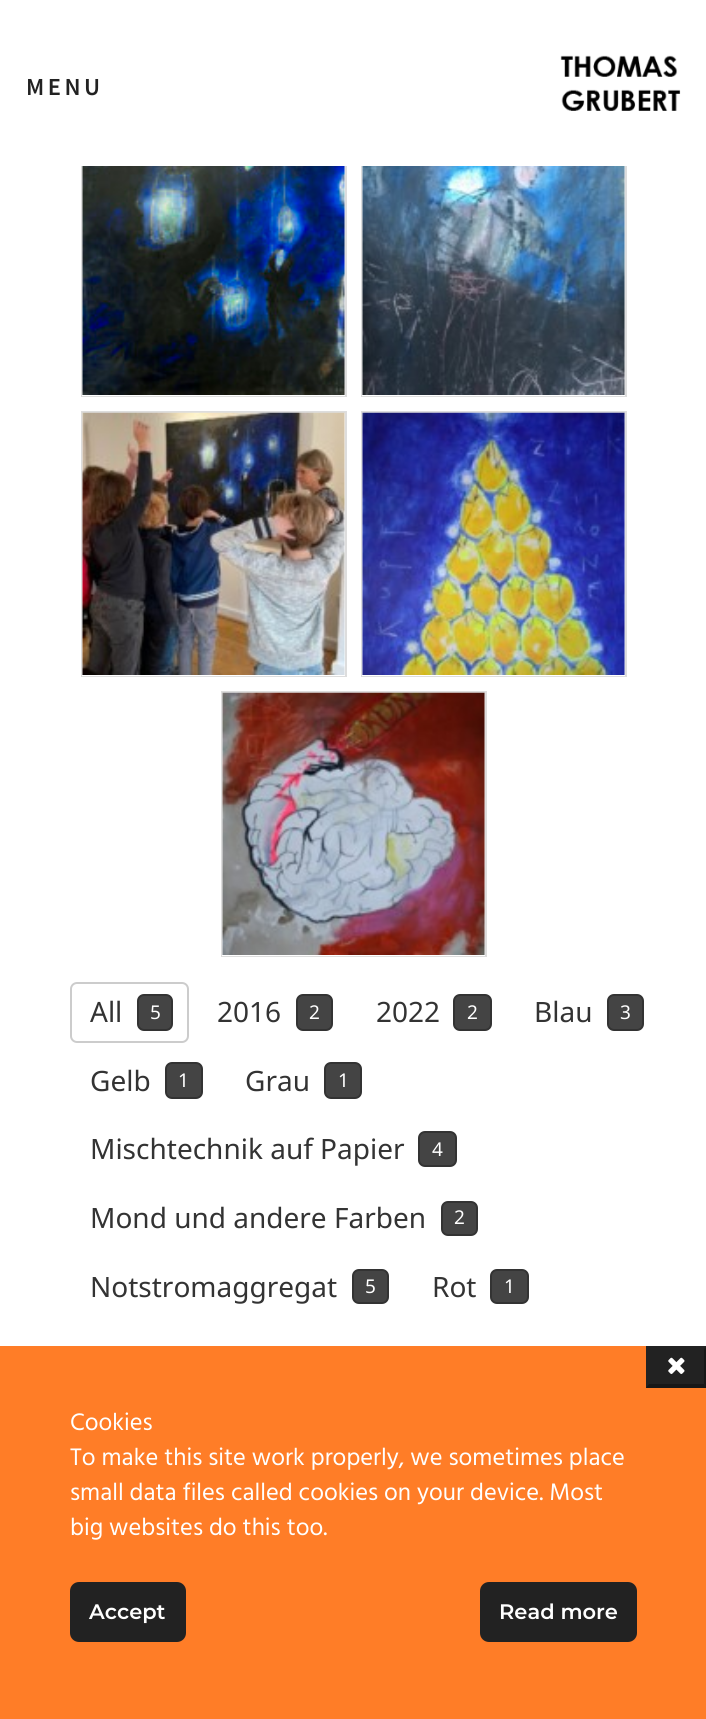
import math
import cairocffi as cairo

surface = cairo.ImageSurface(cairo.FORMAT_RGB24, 706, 1719)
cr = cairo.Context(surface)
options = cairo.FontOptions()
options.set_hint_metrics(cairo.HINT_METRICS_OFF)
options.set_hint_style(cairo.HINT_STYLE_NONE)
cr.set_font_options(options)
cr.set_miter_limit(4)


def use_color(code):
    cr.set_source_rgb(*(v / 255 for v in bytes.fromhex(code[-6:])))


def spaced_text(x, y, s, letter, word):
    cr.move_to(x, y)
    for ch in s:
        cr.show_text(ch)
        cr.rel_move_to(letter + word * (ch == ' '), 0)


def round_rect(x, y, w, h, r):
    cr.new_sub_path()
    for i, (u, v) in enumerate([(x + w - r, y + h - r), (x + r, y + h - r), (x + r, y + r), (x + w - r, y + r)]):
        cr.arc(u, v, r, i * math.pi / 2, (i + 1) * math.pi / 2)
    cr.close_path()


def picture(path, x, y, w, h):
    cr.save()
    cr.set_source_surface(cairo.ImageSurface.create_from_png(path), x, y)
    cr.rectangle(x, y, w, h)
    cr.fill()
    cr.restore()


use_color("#ffffff")
cr.paint()
cr.rectangle(82, 132, 264, 264)
use_color("#dddddd")
cr.stroke()
cr.rectangle(362, 132, 264, 264)
cr.stroke()
use_color("#ffffff")
cr.rectangle(81, 131, 546, 35)
cr.fill()
cr.select_font_face("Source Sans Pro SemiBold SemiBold")
cr.set_font_size(24.5)
use_color("#222222")
spaced_text(26, 95, "MENU", 3.5, 0)
picture("img1.png", 560, 55, 121, 56)
use_color("#ffffff")
cr.rectangle(82, 166, 263, 230)
cr.fill()
picture("img2.png", 82, 166, 263, 229)
cr.rectangle(362, 166, 263, 230)
cr.fill()
picture("img3.png", 362, 166, 263, 229)
cr.rectangle(82, 412, 264, 264)
use_color("#dddddd")
cr.stroke()
use_color("#ffffff")
cr.rectangle(82, 413, 263, 263)
cr.fill()
picture("img4.png", 82, 412, 263, 263)
cr.rectangle(362, 412, 264, 264)
use_color("#dddddd")
cr.stroke()
use_color("#ffffff")
cr.rectangle(362, 413, 263, 263)
cr.fill()
picture("img5.png", 362, 412, 263, 263)
cr.rectangle(222, 692, 264, 264)
use_color("#dddddd")
cr.stroke()
use_color("#ffffff")
cr.rectangle(222, 693, 263, 263)
cr.fill()
picture("img6.png", 222, 692, 263, 263)
round_rect(71, 983, 117, 59, 6)
use_color("#cccccc")
cr.stroke()
cr.select_font_face("Noto Sans")
cr.set_font_size(28)
use_color("#333333")
cr.move_to(90, 1022)
cr.show_text("All")
use_color("#444444")
round_rect(138, 995, 34, 35, 6)
cr.fill_preserve()
use_color("#333333")
cr.stroke()
cr.set_font_size(19)
use_color("#ffffff")
cr.move_to(150, 1019)
cr.show_text("5")
cr.set_font_size(28)
use_color("#333333")
cr.move_to(217, 1022)
cr.show_text("2016")
use_color("#444444")
round_rect(297, 995, 35, 35, 6)
cr.fill_preserve()
use_color("#333333")
cr.stroke()
cr.set_font_size(19)
use_color("#ffffff")
cr.move_to(309, 1019)
cr.show_text("2")
cr.set_font_size(28)
use_color("#333333")
cr.move_to(376, 1022)
cr.show_text("2022")
use_color("#444444")
round_rect(454, 995, 37, 35, 6)
cr.fill_preserve()
use_color("#333333")
cr.stroke()
cr.set_font_size(19)
use_color("#ffffff")
cr.move_to(467, 1019)
cr.show_text("2")
cr.set_font_size(28)
use_color("#333333")
cr.move_to(534, 1022)
cr.show_text("Blau")
use_color("#444444")
round_rect(608, 995, 35, 35, 6)
cr.fill_preserve()
use_color("#333333")
cr.stroke()
cr.set_font_size(19)
use_color("#ffffff")
cr.move_to(620, 1019)
cr.show_text("3")
cr.set_font_size(28)
use_color("#333333")
cr.move_to(90, 1091)
cr.show_text("Gelb")
use_color("#444444")
round_rect(166, 1063, 36, 35, 6)
cr.fill_preserve()
use_color("#333333")
cr.stroke()
cr.set_font_size(19)
use_color("#ffffff")
cr.move_to(178, 1087)
cr.show_text("1")
cr.set_font_size(28)
use_color("#333333")
cr.move_to(245, 1091)
cr.show_text("Grau")
use_color("#444444")
round_rect(325, 1063, 36, 35, 6)
cr.fill_preserve()
use_color("#333333")
cr.stroke()
cr.set_font_size(19)
use_color("#ffffff")
cr.move_to(338, 1087)
cr.show_text("1")
cr.set_font_size(28)
use_color("#333333")
cr.move_to(90, 1159)
cr.show_text("Mischtechnik auf Papier")
use_color("#444444")
round_rect(419, 1132, 37, 34, 6)
cr.fill_preserve()
use_color("#333333")
cr.stroke()
cr.set_font_size(19)
use_color("#ffffff")
cr.move_to(432, 1156)
cr.show_text("4")
cr.set_font_size(28)
use_color("#333333")
cr.move_to(90, 1228)
cr.show_text("Mond und andere Farben")
use_color("#444444")
round_rect(442, 1202, 35, 33, 6)
cr.fill_preserve()
use_color("#333333")
cr.stroke()
cr.set_font_size(19)
use_color("#ffffff")
cr.move_to(454, 1224)
cr.show_text("2")
cr.set_font_size(28)
use_color("#333333")
cr.move_to(90, 1297)
cr.show_text("Notstromaggregat")
use_color("#444444")
round_rect(353, 1270, 35, 33, 6)
cr.fill_preserve()
use_color("#333333")
cr.stroke()
cr.set_font_size(19)
use_color("#ffffff")
cr.move_to(365, 1293)
cr.show_text("5")
cr.set_font_size(28)
use_color("#333333")
cr.move_to(432, 1297)
cr.show_text("Rot")
use_color("#444444")
round_rect(491, 1270, 37, 33, 6)
cr.fill_preserve()
use_color("#333333")
cr.stroke()
cr.set_font_size(19)
use_color("#ffffff")
cr.move_to(504, 1293)
cr.show_text("1")
use_color("#ff7d27")
cr.rectangle(0, 1346, 706, 373)
cr.fill()
use_color("#222222")
cr.rectangle(646, 1346, 60, 42)
cr.fill()
use_color("#171717")
cr.new_path()
cr.move_to(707, 1346)
cr.line_to(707, 1388)
cr.line_to(704, 1384)
cr.line_to(704, 1349)
cr.close_path()
cr.fill()
cr.new_path()
cr.move_to(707, 1388)
cr.line_to(646, 1388)
cr.line_to(649, 1384)
cr.line_to(704, 1384)
cr.close_path()
cr.fill()
picture("img7.png", 668, 1357, 17, 17)
cr.select_font_face("Hind")
cr.set_font_size(24.5)
use_color("#ffffff")
cr.move_to(70, 1430)
cr.show_text("Cookies")
cr.move_to(70, 1465)
cr.show_text("To make this site work properly, we sometimes place")
cr.move_to(70, 1500)
cr.show_text("small data files called cookies on your device. Most")
cr.move_to(70, 1535)
cr.show_text("big websites do this too.")
use_color("#222222")
round_rect(71, 1583, 114, 58, 8)
cr.fill_preserve()
cr.stroke()
cr.select_font_face("Montserrat SemiBold")
cr.set_font_size(21)
use_color("#ffffff")
cr.move_to(89, 1619)
cr.show_text("Accept")
use_color("#222222")
round_rect(481, 1583, 155, 58, 8)
cr.fill_preserve()
cr.stroke()
use_color("#ffffff")
cr.move_to(499, 1619)
cr.show_text("Read more")
surface.write_to_png("result.png")
